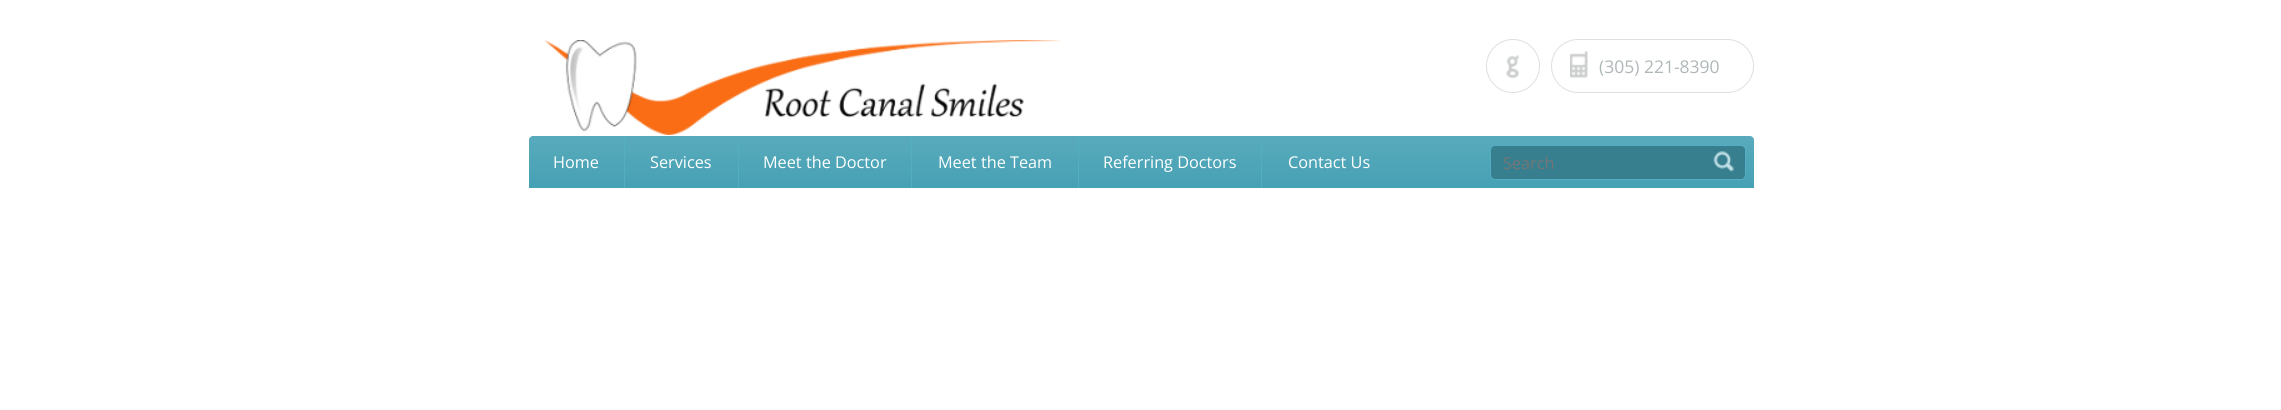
import math
import cairocffi as cairo

surface = cairo.ImageSurface(cairo.FORMAT_RGB24, 2281, 410)
cr = cairo.Context(surface)
options = cairo.FontOptions()
options.set_hint_metrics(cairo.HINT_METRICS_OFF)
options.set_hint_style(cairo.HINT_STYLE_NONE)
cr.set_font_options(options)
cr.set_miter_limit(4)


def use_color(code):
    cr.set_source_rgb(*(v / 255 for v in bytes.fromhex(code[-6:])))


def round_rect(x, y, w, h, r):
    cr.new_sub_path()
    for i, (u, v) in enumerate([(x + w - r, y + h - r), (x + r, y + h - r), (x + r, y + r), (x + w - r, y + r)]):
        cr.arc(u, v, r, i * math.pi / 2, (i + 1) * math.pi / 2)
    cr.close_path()


def picture(path, x, y, w, h):
    cr.save()
    cr.set_source_surface(cairo.ImageSurface.create_from_png(path), x, y)
    cr.rectangle(x, y, w, h)
    cr.fill()
    cr.restore()


use_color("#ffffff")
cr.paint()
picture("img1.png", 545, 40, 516, 95)
cr.arc(1513, 66, 26.5, 0, 2 * math.pi)
use_color("#dfdfdf")
cr.set_line_width(1)
cr.stroke()
picture("img2.png", 1506, 55, 13, 24)
round_rect(1551.5, 39.5, 202, 53, 26.5)
cr.stroke()
picture("img3.png", 1570, 51, 18, 27)
cr.select_font_face("Open Sans")
cr.set_font_size(17.5)
use_color("#b0b7b9")
cr.move_to(1599, 73)
cr.show_text("(305) 221-8390")
use_color("#46a1b4")
cr.new_path()
cr.move_to(533, 136)
cr.line_to(1750, 136)
cr.curve_to(1752, 136, 1754, 138, 1754, 140)
cr.line_to(1754, 188)
cr.line_to(529, 188)
cr.line_to(529, 140)
cr.curve_to(529, 138, 531, 136, 533, 136)
cr.close_path()
cr.fill()
gradient = cairo.LinearGradient(1141, 136, 1141, 188)
gradient.add_color_stop_rgba(0, 1, 1, 1, 0.1)
gradient.add_color_stop_rgba(1, 1, 1, 1, 0)
cr.set_source(gradient)
cr.new_path()
cr.move_to(533, 136)
cr.line_to(1750, 136)
cr.curve_to(1752, 136, 1754, 138, 1754, 140)
cr.line_to(1754, 188)
cr.line_to(529, 188)
cr.line_to(529, 140)
cr.curve_to(529, 138, 531, 136, 533, 136)
cr.close_path()
cr.fill()
use_color("#54aec2")
cr.rectangle(624, 136, 1, 52)
cr.fill()
cr.set_font_size(16.25)
use_color("#ffffff")
cr.move_to(553, 168)
cr.show_text("Home")
use_color("#54aec2")
cr.rectangle(738, 136, 1, 52)
cr.fill()
use_color("#ffffff")
cr.move_to(650, 168)
cr.show_text("Services")
use_color("#54aec2")
cr.rectangle(911, 136, 1, 52)
cr.fill()
use_color("#ffffff")
cr.move_to(763, 168)
cr.show_text("Meet the Doctor")
use_color("#54aec2")
cr.rectangle(1078, 136, 1, 52)
cr.fill()
use_color("#ffffff")
cr.move_to(938, 168)
cr.show_text("Meet the Team")
use_color("#54aec2")
cr.rectangle(1261, 136, 1, 52)
cr.fill()
use_color("#ffffff")
cr.move_to(1103, 168)
cr.show_text("Referring Doctors")
cr.move_to(1288, 168)
cr.show_text("Contact Us")
use_color("#377f8f")
round_rect(1490.5, 145.5, 255, 34, 4.5)
cr.fill_preserve()
use_color("#54aec2")
cr.stroke()
use_color("#757575")
cr.move_to(1503, 169)
cr.show_text("Search")
picture("img4.png", 1713, 151, 21, 21)
surface.write_to_png("result.png")
